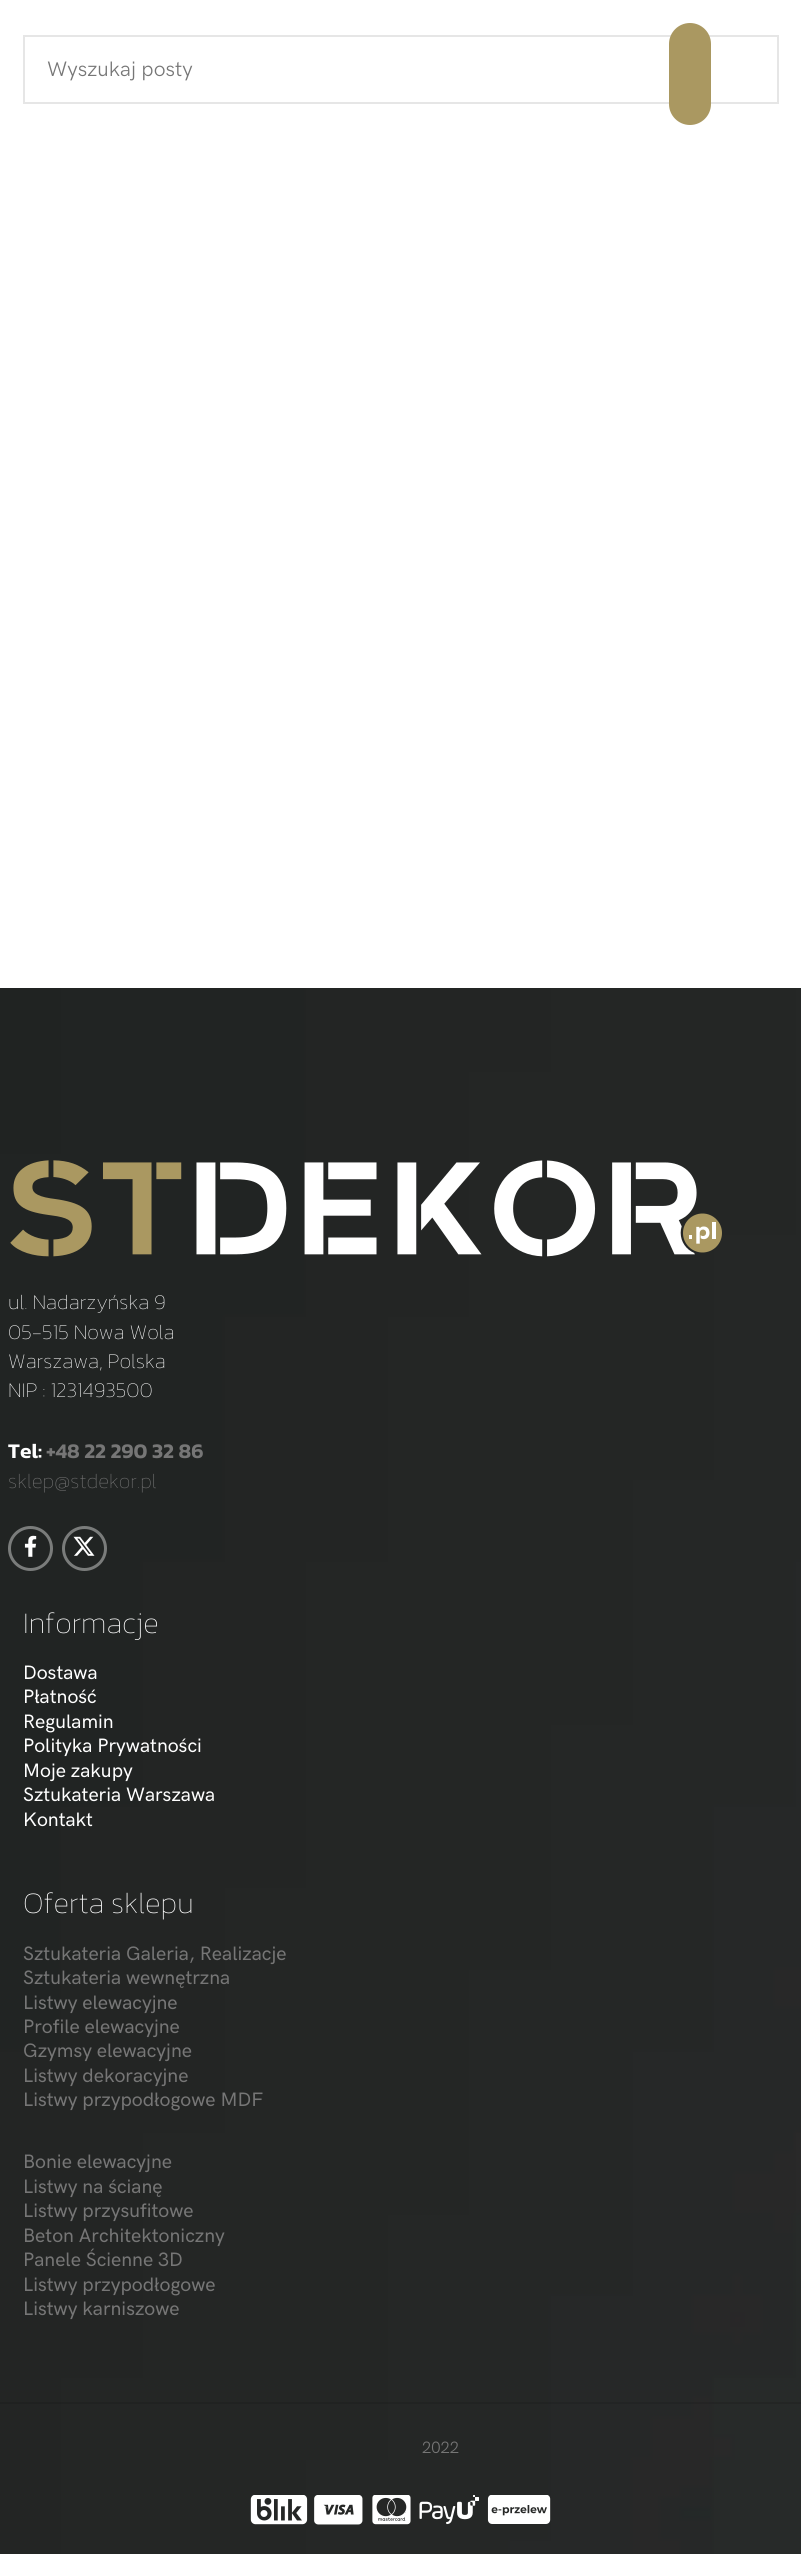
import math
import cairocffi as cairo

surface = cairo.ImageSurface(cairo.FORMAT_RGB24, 801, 2554)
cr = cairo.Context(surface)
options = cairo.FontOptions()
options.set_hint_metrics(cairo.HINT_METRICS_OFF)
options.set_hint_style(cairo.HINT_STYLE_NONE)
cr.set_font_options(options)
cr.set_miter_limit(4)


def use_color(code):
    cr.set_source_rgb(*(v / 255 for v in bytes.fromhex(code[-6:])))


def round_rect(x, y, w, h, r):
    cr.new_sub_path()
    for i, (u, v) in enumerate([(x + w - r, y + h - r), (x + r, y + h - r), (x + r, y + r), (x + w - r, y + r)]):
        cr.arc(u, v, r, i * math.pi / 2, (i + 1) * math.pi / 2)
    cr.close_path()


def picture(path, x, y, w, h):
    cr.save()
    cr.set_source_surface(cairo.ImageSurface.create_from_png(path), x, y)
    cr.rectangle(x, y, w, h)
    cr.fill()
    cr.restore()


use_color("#ffffff")
cr.paint()
cr.rectangle(24, 36, 754, 67)
use_color("#e6e6e6")
cr.stroke()
cr.select_font_face("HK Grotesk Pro")
cr.set_font_size(21)
use_color("#767676")
cr.move_to(47, 76)
cr.show_text("Wyszukaj posty")
use_color("#aa9861")
round_rect(669, 23, 42, 102, 21)
cr.fill()
picture("img1.png", 0, 988, 801, 1566)
picture("img2.png", 10, 1160, 712, 97)
cr.select_font_face("Kanit ExtraLight")
use_color("#ffffff")
cr.move_to(8, 1309)
cr.show_text("ul. Nadarzyńska 9")
cr.move_to(8, 1339)
cr.show_text("05-515 Nowa Wola")
cr.move_to(8, 1368)
cr.show_text("Warszawa, Polska")
cr.move_to(8, 1397)
cr.show_text("NIP : 1231493500")
cr.select_font_face("Kanit SemiBold")
cr.move_to(8, 1458)
cr.show_text("Tel:")
use_color("#767676")
cr.move_to(46, 1458)
cr.show_text("+48 22 290 32 86")
cr.select_font_face("Kanit ExtraLight")
cr.move_to(8, 1488)
cr.show_text("sklep@stdekor.pl")
cr.new_path()
cr.arc(30.5, 1548.5, 21, 0, 2 * math.pi)
use_color("#7a7c7b")
cr.set_line_width(3)
cr.stroke()
picture("img3.png", 24, 1535, 13, 22)
cr.arc(84.5, 1548.5, 21, 0, 2 * math.pi)
cr.stroke()
picture("img4.png", 73, 1536, 22, 20)
cr.set_font_size(30)
use_color("#ffffff")
cr.move_to(23, 1633)
cr.show_text("Informacje")
cr.select_font_face("HK Grotesk Pro Medium")
cr.set_font_size(19.5)
cr.move_to(23, 1679)
cr.show_text("Dostawa")
cr.move_to(23, 1703)
cr.show_text("Płatność")
cr.move_to(23, 1728)
cr.show_text("Regulamin")
cr.move_to(23, 1752)
cr.show_text("Polityka Prywatności")
cr.move_to(23, 1777)
cr.show_text("Moje zakupy")
cr.move_to(23, 1801)
cr.show_text("Sztukateria Warszawa")
cr.move_to(23, 1826)
cr.show_text("Kontakt")
cr.select_font_face("Kanit ExtraLight")
cr.set_font_size(30)
cr.move_to(23, 1913)
cr.show_text("Oferta sklepu")
cr.select_font_face("HK Grotesk Pro Medium")
cr.set_font_size(19.5)
use_color("#767676")
cr.move_to(23, 1960)
cr.show_text("Sztukateria Galeria, Realizacje")
cr.move_to(23, 1984)
cr.show_text("Sztukateria wewnętrzna")
cr.move_to(23, 2009)
cr.show_text("Listwy elewacyjne")
cr.move_to(23, 2033)
cr.show_text("Profile elewacyjne")
cr.move_to(23, 2057)
cr.show_text("Gzymsy elewacyjne")
cr.move_to(23, 2082)
cr.show_text("Listwy dekoracyjne")
cr.move_to(23, 2106)
cr.show_text("Listwy przypodłogowe MDF")
cr.move_to(23, 2168)
cr.show_text("Bonie elewacyjne")
cr.move_to(23, 2193)
cr.show_text("Listwy na ścianę")
cr.move_to(23, 2217)
cr.show_text("Listwy przysufitowe")
cr.move_to(23, 2242)
cr.show_text("Beton Architektoniczny")
cr.move_to(23, 2266)
cr.show_text("Panele Ścienne 3D")
cr.move_to(23, 2291)
cr.show_text("Listwy przypodłogowe")
cr.move_to(23, 2315)
cr.show_text("Listwy karniszowe")
cr.set_source_rgba(0, 0, 0, 0.11)
cr.rectangle(0, 2402, 801, 2)
cr.fill()
cr.select_font_face("HK Grotesk Pro")
cr.set_font_size(16.5)
use_color("#767676")
cr.move_to(422, 2453)
cr.show_text("2022")
picture("img5.png", 250, 2495, 301, 30)
surface.write_to_png("result.png")
